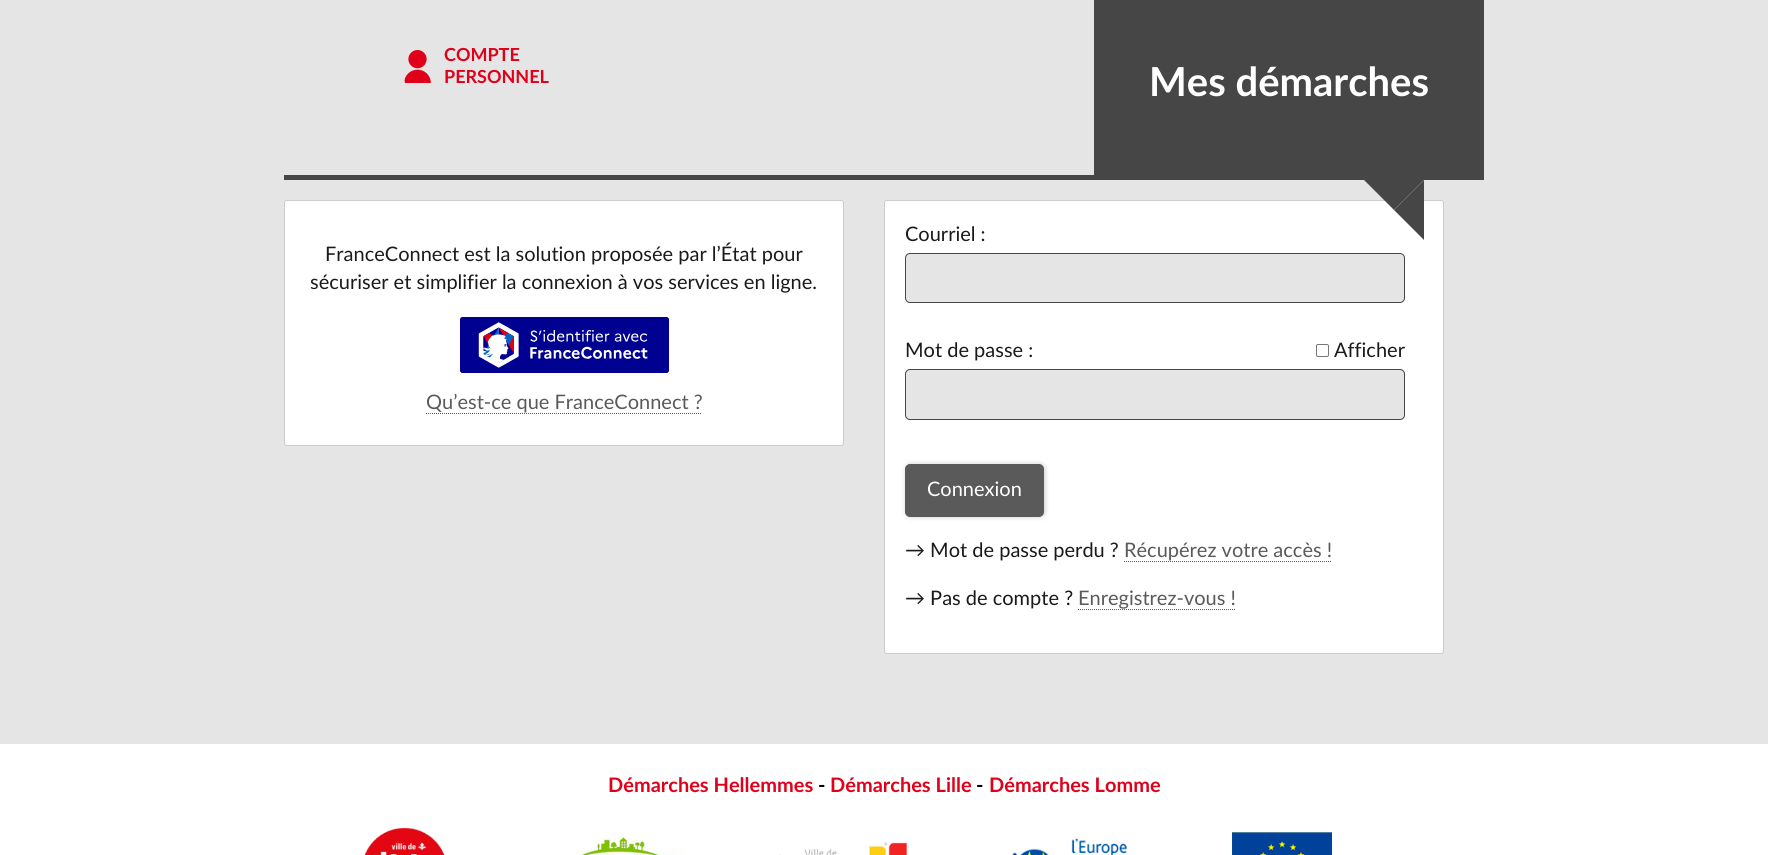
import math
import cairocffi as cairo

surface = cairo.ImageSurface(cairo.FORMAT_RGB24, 1768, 855)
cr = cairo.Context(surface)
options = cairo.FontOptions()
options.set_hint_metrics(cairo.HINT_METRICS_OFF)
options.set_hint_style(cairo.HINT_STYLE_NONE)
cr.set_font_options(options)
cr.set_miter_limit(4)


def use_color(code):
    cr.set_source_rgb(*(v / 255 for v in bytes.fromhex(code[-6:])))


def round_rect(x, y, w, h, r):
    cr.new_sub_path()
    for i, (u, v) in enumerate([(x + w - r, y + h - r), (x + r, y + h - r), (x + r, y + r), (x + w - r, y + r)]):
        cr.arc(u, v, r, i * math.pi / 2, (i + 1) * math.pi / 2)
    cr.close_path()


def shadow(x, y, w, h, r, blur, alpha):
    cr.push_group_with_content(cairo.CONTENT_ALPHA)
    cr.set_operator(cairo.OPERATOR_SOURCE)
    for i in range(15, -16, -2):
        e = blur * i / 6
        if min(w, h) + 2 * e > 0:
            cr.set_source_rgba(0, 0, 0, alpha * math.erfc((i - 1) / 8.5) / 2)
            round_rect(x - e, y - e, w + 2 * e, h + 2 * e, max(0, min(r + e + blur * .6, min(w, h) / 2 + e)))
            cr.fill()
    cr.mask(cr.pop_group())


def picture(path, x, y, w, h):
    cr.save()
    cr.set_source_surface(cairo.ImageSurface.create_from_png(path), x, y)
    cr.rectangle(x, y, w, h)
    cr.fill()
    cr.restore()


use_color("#e5e5e5")
cr.paint()
picture("img1.png", 404, 50, 27, 33)
cr.select_font_face("Lato", cairo.FONT_SLANT_NORMAL, cairo.FONT_WEIGHT_BOLD)
cr.set_font_size(18)
use_color("#e1001a")
cr.move_to(444, 61)
cr.show_text("COMPTE")
cr.move_to(444, 83)
cr.show_text("PERSONNEL")
use_color("#464646")
cr.rectangle(1094, 0, 390, 180)
cr.fill()
cr.set_font_size(40)
use_color("#ffffff")
cr.move_to(1149, 96)
cr.show_text("Mes démarches")
round_rect(884.5, 200.5, 559, 453, 2.5)
cr.fill_preserve()
use_color("#cccccc")
cr.set_line_width(1)
cr.stroke()
use_color("#464646")
cr.new_path()
cr.move_to(1364, 180)
cr.line_to(1424, 180)
cr.line_to(1394, 210)
cr.close_path()
cr.fill()
cr.new_path()
cr.move_to(1424, 180)
cr.line_to(1424, 240)
cr.line_to(1394, 210)
cr.close_path()
cr.fill()
cr.rectangle(284, 175, 810, 5)
cr.fill()
use_color("#ffffff")
round_rect(284.5, 200.5, 559, 245, 2.5)
cr.fill_preserve()
use_color("#cccccc")
cr.stroke()
cr.select_font_face("Lato")
cr.set_font_size(20)
use_color("#1a1a1a")
cr.move_to(325, 261)
cr.show_text("FranceConnect est la solution proposée par l’État pour")
cr.move_to(310, 289)
cr.show_text("sécuriser et simplifier la connexion à vos services en ligne.")
use_color("#000091")
round_rect(460, 317, 209, 56, 3)
cr.fill()
picture("img2.png", 478, 322, 170, 46)
round_rect(460.5, 317.5, 208, 55, 2.5)
cr.stroke()
use_color("#5a5a5a")
cr.move_to(426, 409)
cr.show_text("Qu’est-ce que FranceConnect ?")
cr.new_path()
cr.move_to(426, 413.5)
cr.line_to(702, 413.5)
cr.set_dash([1, 1])
cr.stroke()
use_color("#1a1a1a")
cr.move_to(905, 241)
cr.show_text("Courriel :")
use_color("#e5e5e5")
round_rect(905.5, 253.5, 499, 49, 4.5)
cr.fill_preserve()
use_color("#464646")
cr.set_dash([])
cr.stroke()
use_color("#1a1a1a")
cr.move_to(905, 357)
cr.show_text("Mot de passe :")
round_rect(1316.5, 344.5, 12, 12, 1.5)
use_color("#767676")
cr.stroke()
use_color("#1a1a1a")
cr.move_to(1334, 357)
cr.show_text("Afficher")
use_color("#e5e5e5")
round_rect(905.5, 369.5, 499, 50, 4.5)
cr.fill_preserve()
use_color("#464646")
cr.stroke()
use_color("#000000")
shadow(906, 464, 139, 53, 5, 2.5, 0.21)
use_color("#5a5a5a")
round_rect(906, 465, 137, 51, 4)
cr.fill_preserve()
cr.set_line_width(2)
cr.stroke()
use_color("#ffffff")
cr.move_to(927, 496)
cr.show_text("Connexion")
use_color("#1a1a1a")
cr.move_to(905, 557)
cr.show_text("→ Mot de passe perdu ?")
use_color("#5a5a5a")
cr.move_to(1124, 557)
cr.show_text("Récupérez votre accès !")
cr.new_path()
cr.move_to(1124, 561.5)
cr.line_to(1332, 561.5)
cr.set_line_width(1)
cr.set_dash([1, 1])
cr.stroke()
use_color("#1a1a1a")
cr.move_to(905, 605)
cr.show_text("→ Pas de compte ?")
use_color("#5a5a5a")
cr.move_to(1078, 605)
cr.show_text("Enregistrez-vous !")
cr.new_path()
cr.move_to(1078, 609.5)
cr.line_to(1236, 609.5)
cr.stroke()
use_color("#ffffff")
cr.rectangle(0, 744, 1768, 111)
cr.fill()
cr.select_font_face("Lato", cairo.FONT_SLANT_NORMAL, cairo.FONT_WEIGHT_BOLD)
use_color("#e1001a")
cr.move_to(608, 792)
cr.show_text("Démarches Hellemmes")
use_color("#000000")
cr.move_to(818, 792)
cr.show_text("-")
use_color("#e1001a")
cr.move_to(830, 792)
cr.show_text("Démarches Lille")
use_color("#000000")
cr.move_to(976, 792)
cr.show_text("-")
use_color("#e1001a")
cr.move_to(989, 792)
cr.show_text("Démarches Lomme")
picture("img3.png", 364, 828, 81, 27)
picture("img4.png", 575, 837, 109, 18)
picture("img5.png", 778, 842, 130, 13)
picture("img6.png", 1012, 838, 116, 17)
picture("img7.png", 1232, 832, 100, 23)
surface.write_to_png("result.png")
